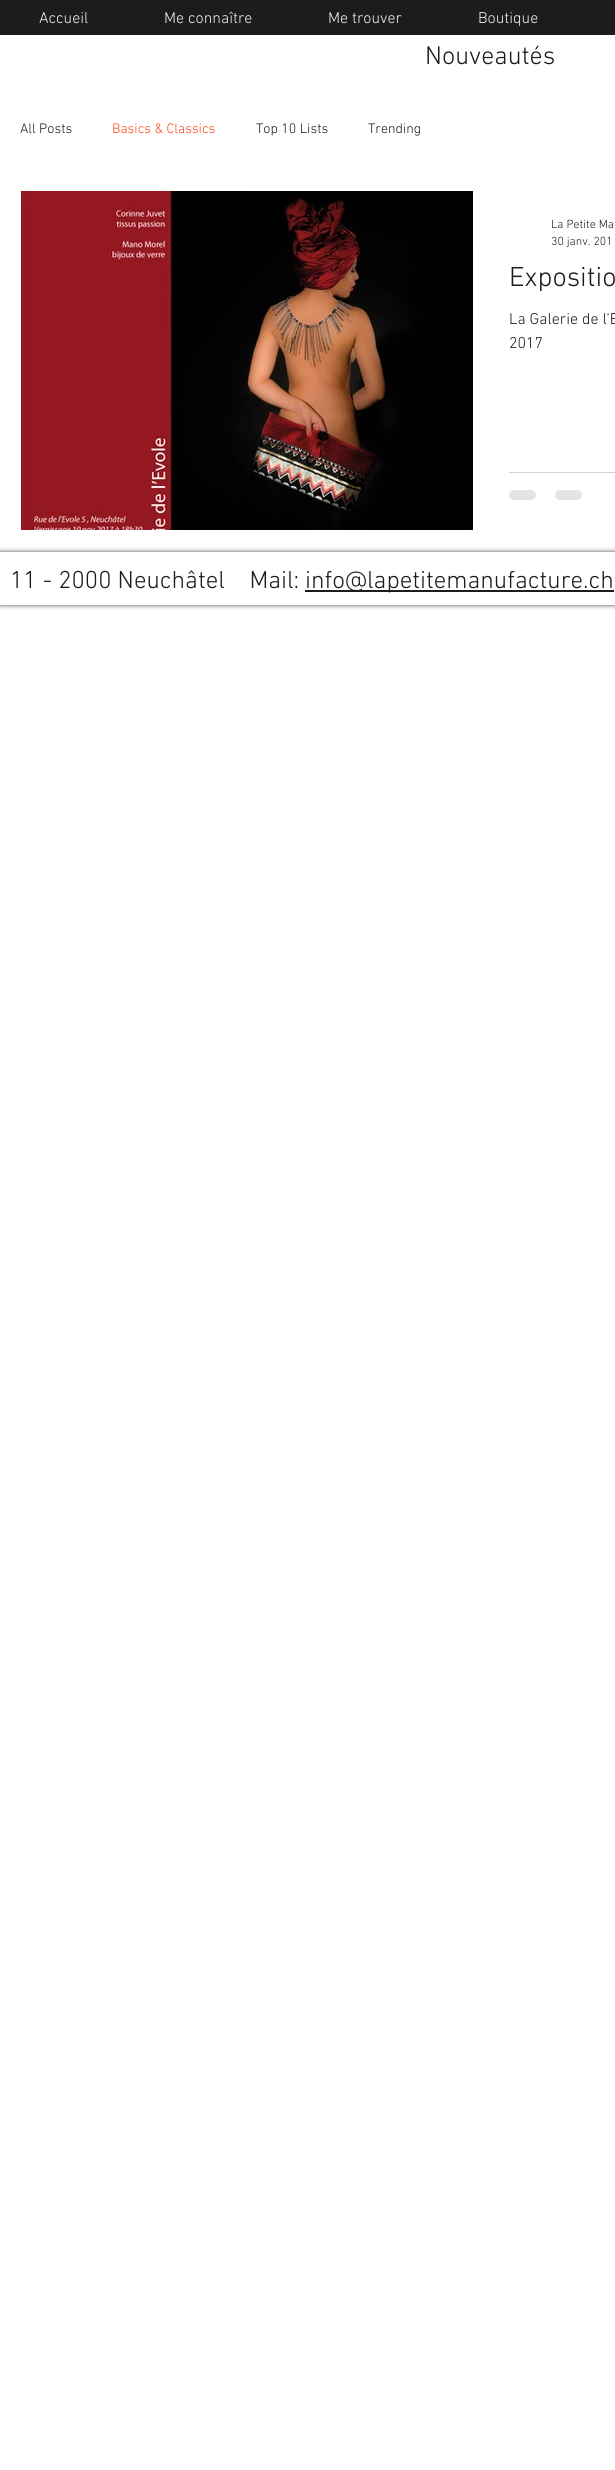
import math
import cairocffi as cairo

surface = cairo.ImageSurface(cairo.FORMAT_RGB24, 615, 2470)
cr = cairo.Context(surface)
options = cairo.FontOptions()
options.set_hint_metrics(cairo.HINT_METRICS_OFF)
options.set_hint_style(cairo.HINT_STYLE_NONE)
cr.set_font_options(options)
cr.set_miter_limit(4)


def use_color(code):
    cr.set_source_rgb(*(v / 255 for v in bytes.fromhex(code[-6:])))


def round_rect(x, y, w, h, r):
    cr.new_sub_path()
    for i, (u, v) in enumerate([(x + w - r, y + h - r), (x + r, y + h - r), (x + r, y + r), (x + w - r, y + r)]):
        cr.arc(u, v, r, i * math.pi / 2, (i + 1) * math.pi / 2)
    cr.close_path()


def shadow(x, y, w, h, r, blur, alpha):
    cr.push_group_with_content(cairo.CONTENT_ALPHA)
    cr.set_operator(cairo.OPERATOR_SOURCE)
    for i in range(15, -16, -2):
        e = blur * i / 6
        if min(w, h) + 2 * e > 0:
            cr.set_source_rgba(0, 0, 0, alpha * math.erfc((i - 1) / 8.5) / 2)
            round_rect(x - e, y - e, w + 2 * e, h + 2 * e, max(0, min(r + e + blur * .6, min(w, h) / 2 + e)))
            cr.fill()
    cr.mask(cr.pop_group())


def picture(path, x, y, w, h):
    cr.save()
    cr.set_source_surface(cairo.ImageSurface.create_from_png(path), x, y)
    cr.rectangle(x, y, w, h)
    cr.fill()
    cr.restore()


use_color("#ffffff")
cr.paint()
use_color("#1c1c1c")
cr.rectangle(0, 0, 615, 35)
cr.fill()
cr.select_font_face("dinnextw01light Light")
cr.set_font_size(16)
use_color("#f1f0f0")
cr.move_to(39, 23)
cr.show_text("Accueil")
cr.move_to(164, 23)
cr.show_text("Me connaître")
cr.move_to(328, 23)
cr.show_text("Me trouver")
cr.move_to(478, 23)
cr.show_text("Boutique")
cr.set_font_size(26)
use_color("#1c1c1c")
cr.move_to(425, 64)
cr.show_text("Nouveautés")
cr.set_font_size(14)
cr.move_to(20, 133)
cr.show_text("All Posts")
use_color("#fa4619")
cr.move_to(112, 133)
cr.show_text("Basics & Classics")
use_color("#1c1c1c")
cr.move_to(256, 133)
cr.show_text("Top 10 Lists")
cr.move_to(368, 133)
cr.show_text("Trending")
picture("img1.png", 21, 191, 452, 339)
cr.set_font_size(12)
cr.move_to(551, 228)
cr.show_text("La Petite Ma")
cr.move_to(551, 245)
cr.show_text("30 janv. 201")
cr.set_font_size(28)
cr.move_to(509, 286)
cr.show_text("Expositio")
cr.set_font_size(16)
cr.move_to(509, 324)
cr.show_text("La Galerie de l'E")
cr.move_to(509, 348)
cr.show_text("2017")
use_color("#d2d2d2")
cr.rectangle(509, 472, 106, 1)
cr.fill()
use_color("#e4e4e4")
round_rect(509, 490, 27, 10, 5)
cr.fill()
round_rect(555, 490, 27, 10, 5)
cr.fill()
cr.save()
cr.set_fill_rule(cairo.FILL_RULE_EVEN_ODD)
cr.new_path()
cr.move_to(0, 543)
cr.line_to(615, 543)
cr.line_to(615, 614)
cr.line_to(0, 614)
cr.close_path()
cr.move_to(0, 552)
cr.line_to(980, 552)
cr.line_to(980, 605)
cr.line_to(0, 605)
cr.close_path()
cr.clip()
use_color("#000000")
shadow(0, 552, 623, 53, 0, 2.5, 0.7)
cr.restore()
cr.set_font_size(25)
use_color("#1c1c1c")
cr.move_to(10, 588)
cr.show_text("11 - 2000 Neuchâtel    Mail:")
cr.rectangle(305, 590, 309, 2)
cr.fill()
cr.move_to(305, 588)
cr.show_text("info@lapetitemanufacture.ch")
surface.write_to_png("result.png")
